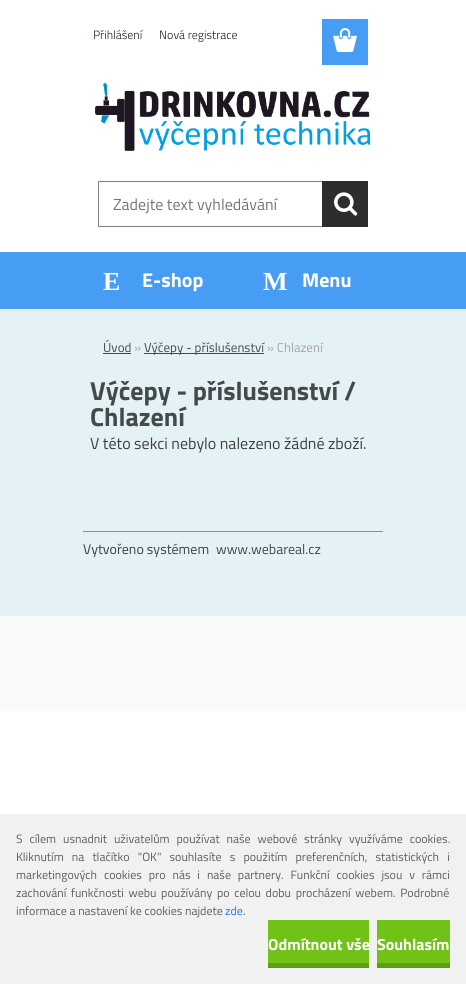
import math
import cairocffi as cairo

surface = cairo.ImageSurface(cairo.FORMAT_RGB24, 466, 984)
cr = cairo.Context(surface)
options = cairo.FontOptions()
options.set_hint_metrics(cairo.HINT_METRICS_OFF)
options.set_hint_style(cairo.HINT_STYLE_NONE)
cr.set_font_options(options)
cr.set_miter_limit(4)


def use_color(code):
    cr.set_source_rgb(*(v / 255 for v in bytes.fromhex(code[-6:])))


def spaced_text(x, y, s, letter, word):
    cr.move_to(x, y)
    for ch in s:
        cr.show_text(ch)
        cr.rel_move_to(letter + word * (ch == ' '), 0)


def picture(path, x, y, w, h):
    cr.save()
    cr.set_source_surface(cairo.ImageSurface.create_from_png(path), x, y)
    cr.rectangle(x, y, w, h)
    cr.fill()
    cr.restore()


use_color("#ffffff")
cr.paint()
use_color("#fafafa")
cr.rectangle(0, 616, 466, 95)
cr.fill()
use_color("#e4f2f6")
cr.rectangle(0, 309, 466, 307)
cr.fill()
cr.select_font_face("Titillium Web Light")
cr.set_font_size(12)
use_color("#231c24")
cr.move_to(93, 39)
cr.show_text("Přihlášení")
cr.move_to(159, 39)
cr.show_text("Nová registrace")
use_color("#479cf3")
cr.rectangle(322, 19, 46, 46)
cr.fill()
picture("img1.png", 333, 28, 24, 24)
cr.rectangle(0, 252, 466, 57)
cr.fill()
cr.select_font_face("Liberation Serif", cairo.FONT_SLANT_NORMAL, cairo.FONT_WEIGHT_BOLD)
cr.set_font_size(26)
use_color("#ffffff")
cr.move_to(103, 290)
cr.show_text("E")
cr.select_font_face("Titillium Web", cairo.FONT_SLANT_NORMAL, cairo.FONT_WEIGHT_BOLD)
cr.set_font_size(20)
cr.move_to(142, 287)
cr.show_text("E-shop")
cr.select_font_face("Liberation Serif", cairo.FONT_SLANT_NORMAL, cairo.FONT_WEIGHT_BOLD)
cr.set_font_size(26)
cr.move_to(263, 290)
cr.show_text("M")
cr.select_font_face("Titillium Web", cairo.FONT_SLANT_NORMAL, cairo.FONT_WEIGHT_BOLD)
cr.set_font_size(20)
cr.move_to(302, 287)
cr.show_text("Menu")
cr.select_font_face("Titillium Web")
cr.set_font_size(13)
use_color("#44494a")
cr.move_to(103, 352)
cr.show_text("Úvod")
cr.rectangle(103, 353, 28, 1)
cr.fill()
use_color("#a5a5a5")
cr.move_to(134, 352)
cr.show_text("»")
use_color("#44494a")
cr.rectangle(144, 353, 120, 1)
cr.fill()
cr.move_to(144, 352)
cr.show_text("Výčepy - příslušenství")
use_color("#a5a5a5")
cr.move_to(267, 352)
cr.show_text("» Chlazení")
cr.select_font_face("Titillium Web", cairo.FONT_SLANT_NORMAL, cairo.FONT_WEIGHT_BOLD)
cr.set_font_size(26)
use_color("#44494a")
cr.move_to(90, 400)
cr.show_text("Výčepy - příslušenství /")
cr.move_to(90, 426)
cr.show_text("Chlazení")
cr.select_font_face("Titillium Web")
cr.set_font_size(16)
use_color("#3f3f3f")
cr.move_to(90, 449)
cr.show_text("V této sekci nebylo nalezeno žádné zboží.")
use_color("#479cf3")
cr.rectangle(83, 531, 300, 1)
cr.fill()
cr.set_font_size(14)
use_color("#3f3f3f")
cr.move_to(83, 554)
cr.show_text("Vytvořeno systémem")
use_color("#44494a")
cr.move_to(216, 554)
cr.show_text("www.webareal.cz")
picture("img2.png", 95, 83, 275, 68)
use_color("#808080")
cr.new_path()
cr.move_to(98, 181)
cr.line_to(322, 181)
cr.line_to(322, 182)
cr.line_to(99, 182)
cr.close_path()
cr.fill()
cr.new_path()
cr.move_to(322, 227)
cr.line_to(98, 227)
cr.line_to(99, 226)
cr.line_to(322, 226)
cr.close_path()
cr.fill()
cr.set_source_rgba(0, 0, 0, 0.5)
cr.new_path()
cr.move_to(98, 227)
cr.line_to(98, 181)
cr.line_to(99, 182)
cr.line_to(99, 226)
cr.close_path()
cr.fill()
cr.set_font_size(16)
use_color("#757575")
cr.move_to(113, 210)
cr.show_text("Zadejte text vyhledávání")
use_color("#2d2d2d")
cr.rectangle(322, 181, 46, 46)
cr.fill()
picture("img3.png", 334, 192, 24, 24)
use_color("#f1f1f1")
cr.rectangle(0, 814, 466, 170)
cr.fill()
cr.set_font_size(12)
use_color("#5e5e5e")
spaced_text(16, 843, "S cílem usnadnit uživatelům používat naše webové stránky využíváme cookies.", 0, 4.25)
spaced_text(16, 861, "Kliknutím na tlačítko \"OK\" souhlasíte s použitím preferenčních, statistických i", 0, 5.5)
spaced_text(16, 879, "marketingových cookies pro nás i naše partnery. Funkční cookies jsou v rámci", 0, 4.25)
spaced_text(16, 897, "zachování funkčnosti webu používány po celou dobu procházení webem. Podrobné", 0, 2)
cr.move_to(16, 915)
cr.show_text("informace a nastavení ke cookies najdete")
use_color("#1975fd")
cr.move_to(225, 915)
cr.show_text("zde")
use_color("#5e5e5e")
cr.move_to(243, 915)
cr.show_text(".")
use_color("#70c217")
cr.rectangle(268, 920, 101, 43)
cr.fill()
use_color("#5c9e15")
cr.rectangle(268, 963, 101, 5)
cr.fill()
cr.select_font_face("Titillium Web", cairo.FONT_SLANT_NORMAL, cairo.FONT_WEIGHT_BOLD)
cr.set_font_size(16)
use_color("#ffffff")
cr.move_to(268, 950)
cr.show_text("Odmítnout vše")
use_color("#70c217")
cr.rectangle(377, 920, 73, 43)
cr.fill()
use_color("#5c9e15")
cr.rectangle(377, 963, 73, 5)
cr.fill()
use_color("#ffffff")
cr.move_to(377, 950)
cr.show_text("Souhlasím")
surface.write_to_png("result.png")
